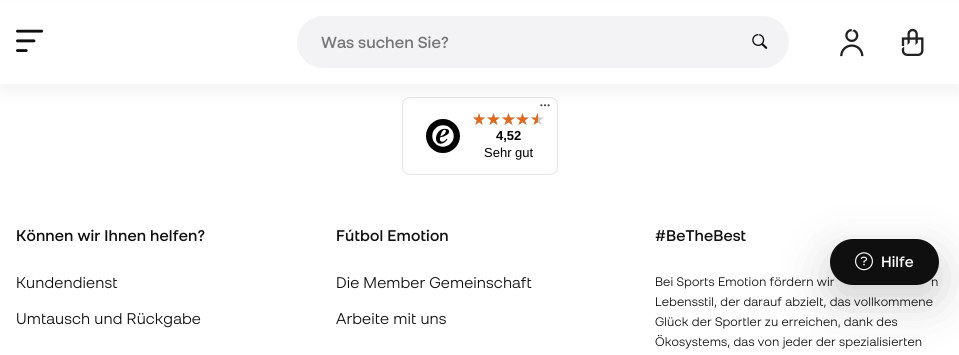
import math
import cairocffi as cairo

surface = cairo.ImageSurface(cairo.FORMAT_RGB24, 959, 355)
cr = cairo.Context(surface)
options = cairo.FontOptions()
options.set_hint_metrics(cairo.HINT_METRICS_OFF)
options.set_hint_style(cairo.HINT_STYLE_NONE)
cr.set_font_options(options)
cr.set_miter_limit(4)


def use_color(code):
    cr.set_source_rgb(*(v / 255 for v in bytes.fromhex(code[-6:])))


def spaced_text(x, y, s, letter, word):
    cr.move_to(x, y)
    for ch in s:
        cr.show_text(ch)
        cr.rel_move_to(letter + word * (ch == ' '), 0)


def round_rect(x, y, w, h, r):
    cr.new_sub_path()
    for i, (u, v) in enumerate([(x + w - r, y + h - r), (x + r, y + h - r), (x + r, y + r), (x + w - r, y + r)]):
        cr.arc(u, v, r, i * math.pi / 2, (i + 1) * math.pi / 2)
    cr.close_path()


def shadow(x, y, w, h, r, blur, alpha):
    cr.push_group_with_content(cairo.CONTENT_ALPHA)
    cr.set_operator(cairo.OPERATOR_SOURCE)
    for i in range(15, -16, -2):
        e = blur * i / 6
        if min(w, h) + 2 * e > 0:
            cr.set_source_rgba(0, 0, 0, alpha * math.erfc((i - 1) / 8.5) / 2)
            round_rect(x - e, y - e, w + 2 * e, h + 2 * e, max(0, min(r + e + blur * .6, min(w, h) / 2 + e)))
            cr.fill()
    cr.mask(cr.pop_group())


def picture(path, x, y, w, h):
    cr.save()
    cr.set_source_surface(cairo.ImageSurface.create_from_png(path), x, y)
    cr.rectangle(x, y, w, h)
    cr.fill()
    cr.restore()


use_color("#ffffff")
cr.paint()
round_rect(402.5, 97.5, 155, 77, 7.5)
use_color("#e5e5e5")
cr.set_line_width(1)
cr.stroke()
picture("img5.png", 540, 104, 10, 3)
picture("img7.png", 473, 113, 12, 12)
picture("img8.png", 487, 113, 13, 12)
picture("img9.png", 502, 113, 13, 12)
picture("img8.png", 516, 113, 13, 12)
picture("img8.png", 531, 113, 13, 12)
picture("img10.png", 473, 113, 12, 12)
picture("img11.png", 487, 113, 13, 12)
picture("img12.png", 502, 113, 13, 12)
picture("img11.png", 516, 113, 13, 12)
picture("img13.png", 531, 113, 7, 12)
use_color("#000000")
shadow(0, 8, 959, 84, 0, 8, 0.05)
use_color("#ffffff")
cr.rectangle(0, 1, 959, 83)
cr.fill()
picture("img1.png", 16, 29, 28, 23)
use_color("#f3f3f5")
round_rect(297, 16, 492, 52, 26)
cr.fill()
cr.select_font_face("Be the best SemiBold")
cr.set_font_size(16)
use_color("#757575")
cr.move_to(321, 48)
cr.show_text("Was suchen Sie?")
picture("img2.png", 752, 34, 16, 15)
picture("img3.png", 840, 29, 24, 28)
picture("img4.png", 901, 28, 23, 28)
picture("img6.png", 426, 119, 34, 34)
cr.select_font_face("Liberation Sans", cairo.FONT_SLANT_NORMAL, cairo.FONT_WEIGHT_BOLD)
cr.set_font_size(13)
use_color("#000000")
cr.move_to(496, 140)
cr.show_text("4,52")
cr.select_font_face("Liberation Sans")
cr.move_to(484, 157)
cr.show_text("Sehr gut")
cr.select_font_face("Be the best SemiBold")
cr.set_font_size(15.5)
use_color("#0f0f0f")
spaced_text(16, 241, "Können wir Ihnen helfen?", 0.1, 0)
cr.select_font_face("Be the best")
spaced_text(16, 288, "Kundendienst", 0.1, 0)
spaced_text(16, 324, "Umtausch und Rückgabe", 0.1, 0)
cr.select_font_face("Be the best SemiBold")
spaced_text(336, 241, "Fútbol Emotion", 0.1, 0)
cr.select_font_face("Be the best")
spaced_text(336, 288, "Die Member Gemeinschaft", 0.1, 0)
spaced_text(336, 324, "Arbeite mit uns", 0.1, 0)
cr.select_font_face("Be the best SemiBold")
spaced_text(655, 241, "#BeTheBest", 0.1, 0)
cr.select_font_face("Be the best")
cr.set_font_size(12.4)
spaced_text(655, 286, "Bei Sports Emotion fördern wir", 0.1, 0)
spaced_text(931, 286, "n", 0.1, 0)
spaced_text(655, 306, "Lebensstil, der darauf abzielt, das vollkommene", 0.1, 0)
spaced_text(655, 326, "Glück der Sportler zu erreichen, dank des", 0.1, 0)
spaced_text(655, 346, "Ökosystems, das von jeder der spezialisierten", 0.1, 0)
use_color("#000000")
shadow(830, 255, 109, 46, 23, 24, 0.18)
use_color("#0f0f0f")
round_rect(830, 239, 109, 46, 23)
cr.fill()
picture("img14.png", 855, 252, 18, 19)
cr.select_font_face("Be the best SemiBold")
cr.set_font_size(15)
use_color("#ffffff")
cr.move_to(881, 267)
cr.show_text("Hilfe")
surface.write_to_png("result.png")
